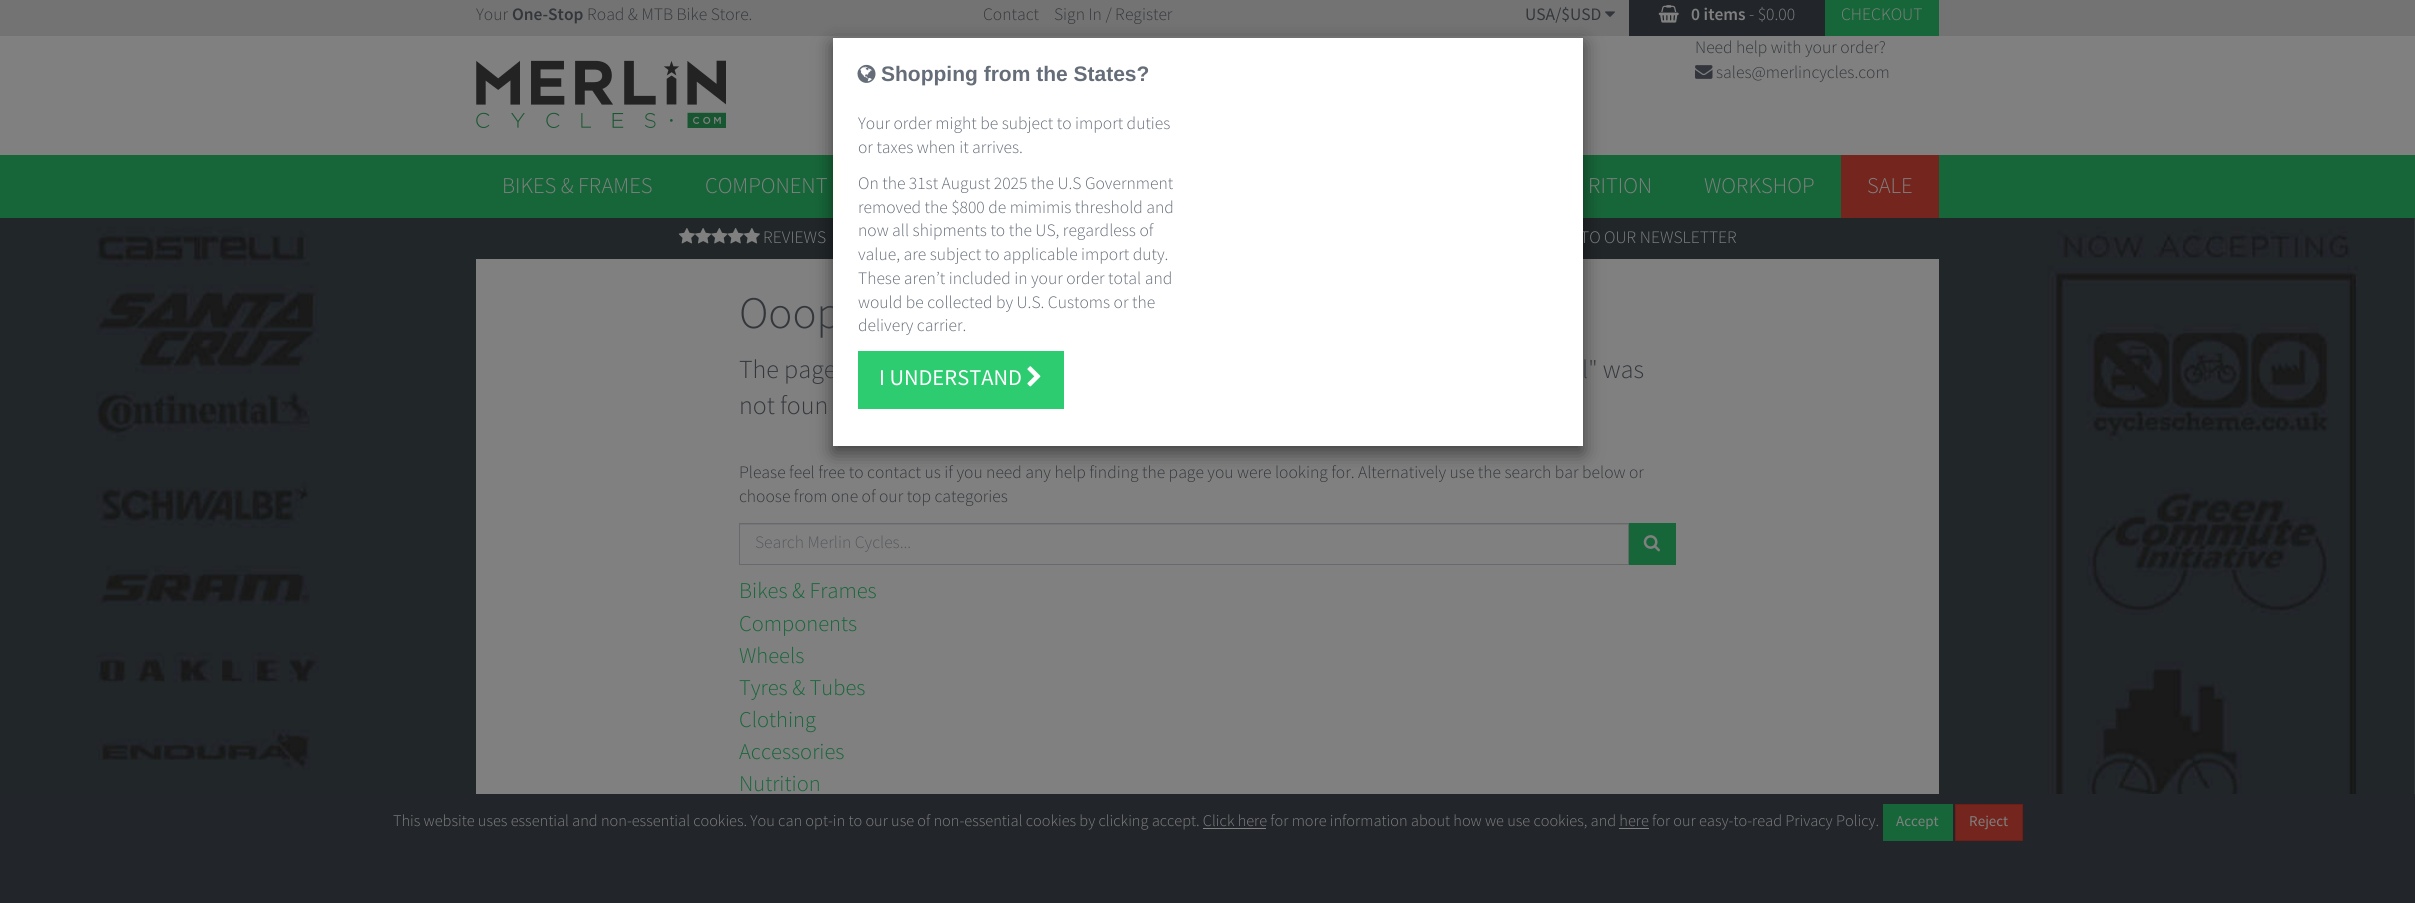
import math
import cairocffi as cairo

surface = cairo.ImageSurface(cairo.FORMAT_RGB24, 2415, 903)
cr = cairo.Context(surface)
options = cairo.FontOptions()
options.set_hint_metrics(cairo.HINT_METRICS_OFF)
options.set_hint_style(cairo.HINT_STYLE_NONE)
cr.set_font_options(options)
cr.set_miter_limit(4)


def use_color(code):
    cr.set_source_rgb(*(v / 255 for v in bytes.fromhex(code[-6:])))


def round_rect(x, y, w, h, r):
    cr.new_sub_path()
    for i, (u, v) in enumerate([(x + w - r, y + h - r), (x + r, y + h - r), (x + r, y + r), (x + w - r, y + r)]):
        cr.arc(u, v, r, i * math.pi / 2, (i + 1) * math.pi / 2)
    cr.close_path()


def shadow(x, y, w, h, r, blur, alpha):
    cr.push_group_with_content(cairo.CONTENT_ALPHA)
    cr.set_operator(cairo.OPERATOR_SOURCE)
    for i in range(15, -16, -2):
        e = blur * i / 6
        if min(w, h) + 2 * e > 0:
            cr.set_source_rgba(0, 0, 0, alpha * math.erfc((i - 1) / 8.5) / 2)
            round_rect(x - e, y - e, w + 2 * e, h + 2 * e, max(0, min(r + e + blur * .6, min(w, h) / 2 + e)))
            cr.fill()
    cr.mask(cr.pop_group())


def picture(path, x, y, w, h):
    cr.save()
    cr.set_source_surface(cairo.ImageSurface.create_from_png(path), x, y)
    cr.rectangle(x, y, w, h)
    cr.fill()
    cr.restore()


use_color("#ffffff")
cr.paint()
use_color("#737373")
cr.rectangle(0, 0, 2415, 36)
cr.fill()
cr.select_font_face("Source Sans Pro Light")
cr.set_font_size(17.5)
use_color("#33373c")
cr.move_to(476, 20)
cr.show_text("Your")
cr.select_font_face("Source Sans Pro SemiBold")
cr.move_to(512, 20)
cr.show_text("One-Stop")
cr.select_font_face("Source Sans Pro Light")
cr.move_to(587, 20)
cr.show_text("Road & MTB Bike Store.")
cr.move_to(983, 20)
cr.show_text("Contact")
cr.move_to(1054, 20)
cr.show_text("Sign In / Register")
cr.select_font_face("Source Sans Pro")
cr.move_to(1525, 20)
cr.show_text("USA/$USD")
picture("img1.png", 1605, 11, 10, 6)
use_color("#22252a")
cr.rectangle(1629, 0, 196, 36)
cr.fill()
picture("img2.png", 1658, 5, 21, 18)
cr.select_font_face("Source Sans Pro SemiBold")
use_color("#808080")
cr.move_to(1691, 20)
cr.show_text("0 items")
cr.select_font_face("Source Sans Pro Light")
cr.move_to(1749, 20)
cr.show_text("- $0.00")
use_color("#176639")
cr.rectangle(1825, 0, 114, 36)
cr.fill()
use_color("#808080")
cr.move_to(1841, 20)
cr.show_text("CHECKOUT")
cr.rectangle(0, 36, 2415, 119)
cr.fill()
use_color("#176639")
cr.rectangle(0, 155, 2415, 63)
cr.fill()
picture("img7.png", 0, 218, 2415, 576)
use_color("#808080")
cr.rectangle(476, 259, 1463, 535)
cr.fill()
use_color("#000000")
shadow(833, 44, 750, 409, 0, 9.5, 0.5)
use_color("#808080")
cr.move_to(1580, 243)
cr.show_text("TO OUR NEWSLETTER")
cr.set_font_size(45)
use_color("#33373c")
cr.move_to(739, 328)
cr.show_text("Ooop")
cr.set_font_size(26)
cr.move_to(739, 378)
cr.show_text("The page")
use_color("#ffffff")
cr.rectangle(833, 38, 750, 408)
cr.fill()
picture("img3.png", 857, 64, 19, 19)
cr.select_font_face("Liberation Sans", cairo.FONT_SLANT_NORMAL, cairo.FONT_WEIGHT_BOLD)
cr.set_font_size(21)
use_color("#656d78")
cr.move_to(881, 81)
cr.show_text("Shopping from the States?")
cr.select_font_face("Source Sans Pro Light")
cr.set_font_size(17.5)
cr.move_to(858, 129)
cr.show_text("Your order might be subject to import duties")
cr.move_to(858, 153)
cr.show_text("or taxes when it arrives.")
cr.move_to(858, 189)
cr.show_text("On the 31st August 2025 the U.S Government")
cr.move_to(858, 213)
cr.show_text("removed the $800 de mimimis threshold and")
cr.move_to(858, 236)
cr.show_text("now all shipments to the US, regardless of")
cr.move_to(858, 260)
cr.show_text("value, are subject to applicable import duty.")
cr.move_to(858, 284)
cr.show_text("These aren’t included in your order total and")
cr.move_to(858, 308)
cr.show_text("would be collected by U.S. Customs or the")
cr.move_to(858, 331)
cr.show_text("delivery carrier.")
use_color("#2ecc71")
cr.rectangle(858, 351, 206, 58)
cr.fill()
cr.select_font_face("Source Sans Pro")
cr.set_font_size(22.5)
use_color("#ffffff")
cr.move_to(879, 385)
cr.show_text("I UNDERSTAND")
picture("img4.png", 1027, 366, 14, 21)
cr.select_font_face("Source Sans Pro Light")
cr.set_font_size(17.5)
use_color("#33373c")
cr.move_to(1695, 53)
cr.show_text("Need help with your order?")
picture("img5.png", 476, 60, 250, 68)
picture("img6.png", 1695, 65, 18, 14)
cr.move_to(1716, 78)
cr.show_text("sales@merlincycles.com")
cr.set_font_size(22.5)
use_color("#808080")
cr.move_to(502, 193)
cr.show_text("BIKES & FRAMES")
cr.move_to(705, 193)
cr.show_text("COMPONENT")
cr.move_to(1588, 193)
cr.show_text("RITION")
cr.move_to(1704, 193)
cr.show_text("WORKSHOP")
use_color("#74261e")
cr.rectangle(1841, 155, 98, 63)
cr.fill()
use_color("#808080")
cr.move_to(1867, 193)
cr.show_text("SALE")
picture("img8.png", 678, 228, 17, 16)
picture("img9.png", 695, 228, 17, 16)
picture("img10.png", 711, 228, 17, 16)
picture("img11.png", 727, 228, 17, 16)
picture("img12.png", 743, 228, 17, 16)
cr.set_font_size(17.5)
cr.move_to(763, 243)
cr.show_text("REVIEWS")
cr.set_font_size(26)
use_color("#33373c")
cr.move_to(1582, 378)
cr.show_text("l\" was")
cr.move_to(739, 414)
cr.show_text("not foun")
cr.set_font_size(17.5)
cr.move_to(739, 478)
cr.show_text("Please feel free to contact us if you need any help finding the page you were looking for. Alternatively use the search bar below or")
cr.move_to(739, 502)
cr.show_text("choose from one of our top categories")
use_color("#767676")
cr.rectangle(740, 524, 888, 1)
cr.fill()
cr.rectangle(739.5, 523.5, 889, 41)
use_color("#66696d")
cr.set_line_width(1)
cr.stroke()
use_color("#55595f")
cr.move_to(755, 548)
cr.show_text("Search Merlin Cycles...")
use_color("#176639")
cr.rectangle(1629, 523, 47, 42)
cr.fill()
picture("img13.png", 1643, 535, 17, 17)
cr.set_font_size(22.5)
cr.move_to(739, 598)
cr.show_text("Bikes & Frames")
cr.move_to(739, 631)
cr.show_text("Components")
cr.move_to(739, 663)
cr.show_text("Wheels")
cr.move_to(739, 695)
cr.show_text("Tyres & Tubes")
cr.move_to(739, 727)
cr.show_text("Clothing")
cr.move_to(739, 759)
cr.show_text("Accessories")
cr.move_to(739, 791)
cr.show_text("Nutrition")
use_color("#22252a")
cr.rectangle(0, 794, 2415, 109)
cr.fill()
cr.set_font_size(16.25)
use_color("#808080")
cr.move_to(393, 826)
cr.show_text("This website uses essential and non-essential cookies. You can opt-in to our use of non-essential cookies by clicking accept. Click here for more information about how we use cookies, and here for our easy-to-read Privacy Policy.")
use_color("#176639")
cr.rectangle(1883, 804, 70, 37)
cr.fill()
cr.select_font_face("Source Sans Pro")
cr.set_font_size(15)
use_color("#808080")
cr.move_to(1896, 826)
cr.show_text("Accept")
use_color("#74261e")
cr.rectangle(1955.5, 804.5, 67, 36)
cr.fill_preserve()
use_color("#721c13")
cr.stroke()
use_color("#808080")
cr.move_to(1969, 826)
cr.show_text("Reject")
cr.rectangle(1203, 828, 63, 1)
cr.fill()
cr.rectangle(1619, 828, 30, 1)
cr.fill()
surface.write_to_png("result.png")
